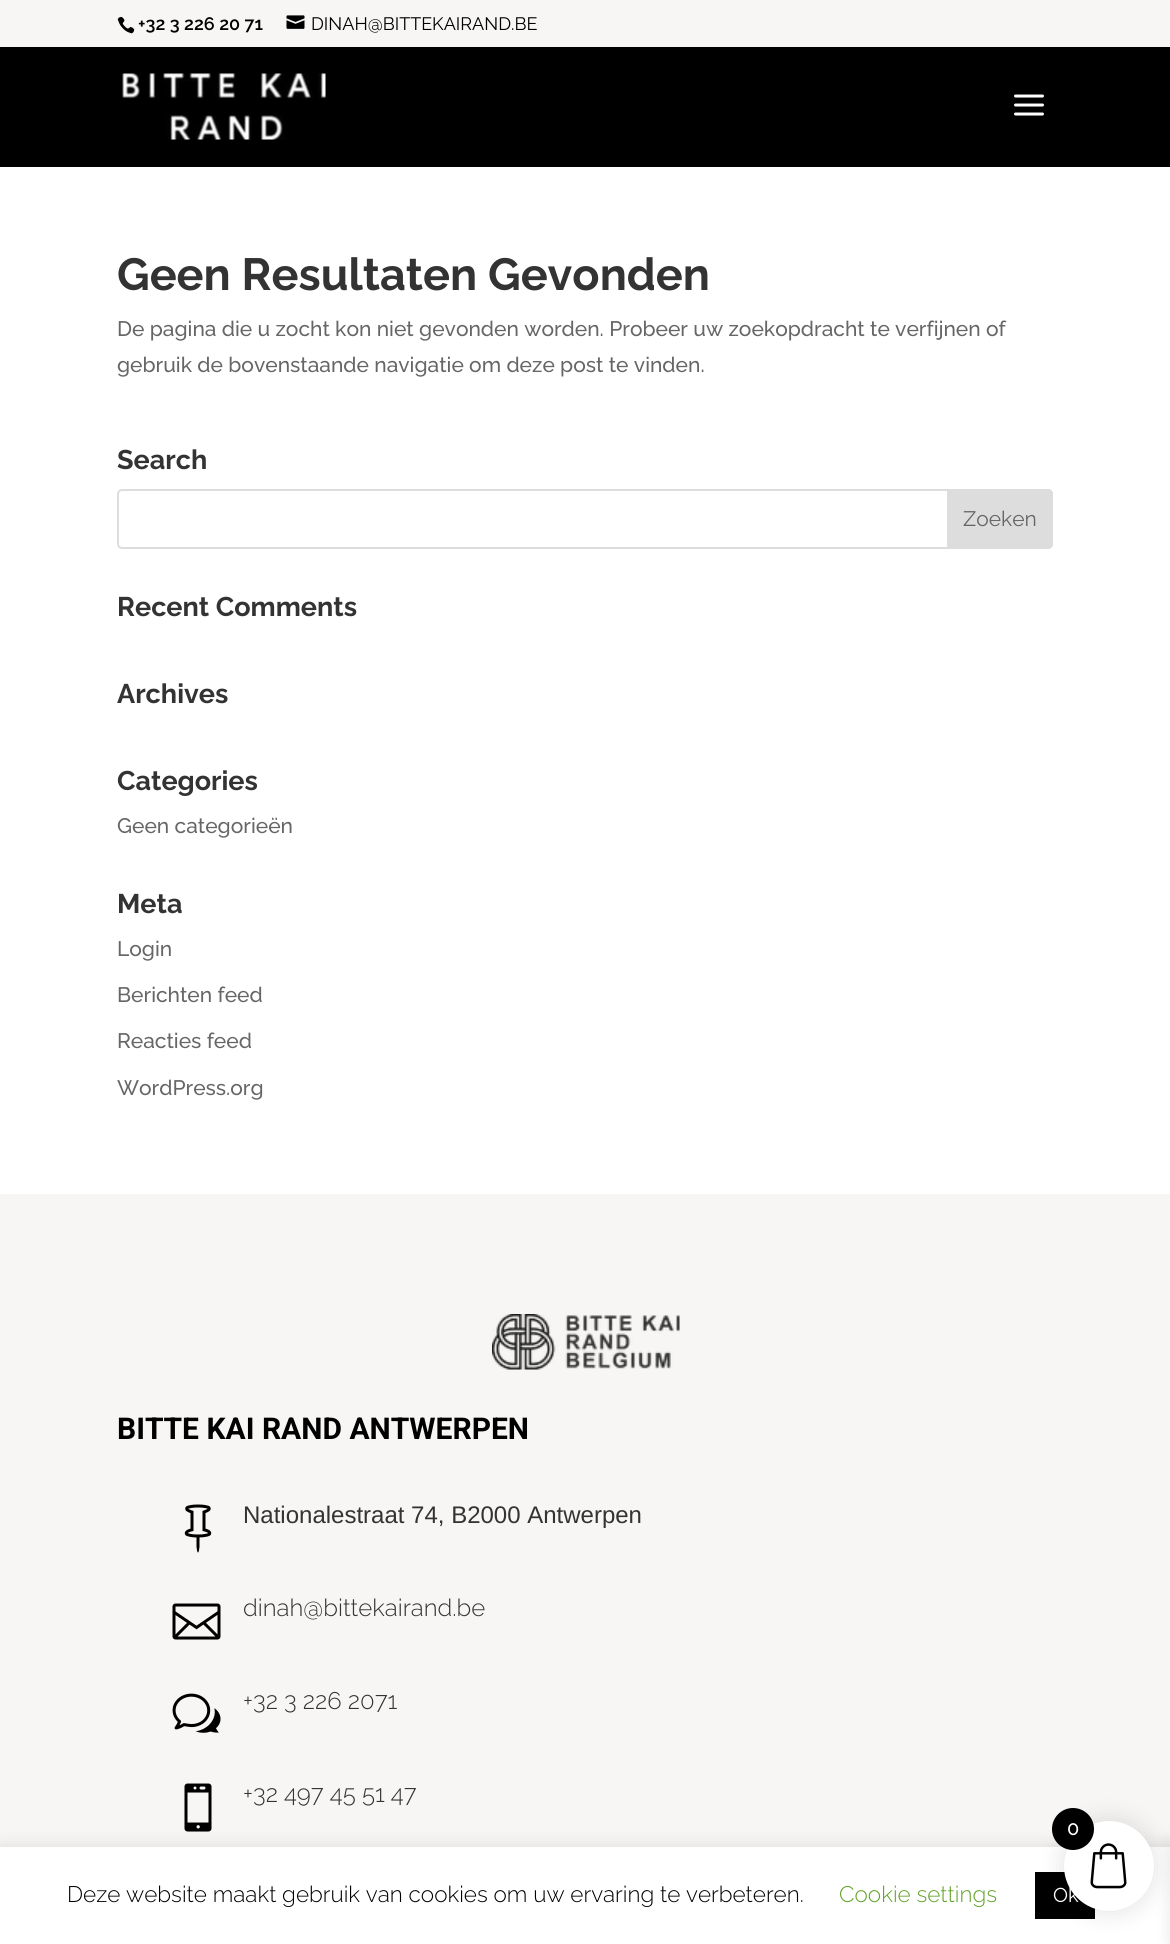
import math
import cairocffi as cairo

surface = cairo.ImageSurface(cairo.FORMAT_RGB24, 1170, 1944)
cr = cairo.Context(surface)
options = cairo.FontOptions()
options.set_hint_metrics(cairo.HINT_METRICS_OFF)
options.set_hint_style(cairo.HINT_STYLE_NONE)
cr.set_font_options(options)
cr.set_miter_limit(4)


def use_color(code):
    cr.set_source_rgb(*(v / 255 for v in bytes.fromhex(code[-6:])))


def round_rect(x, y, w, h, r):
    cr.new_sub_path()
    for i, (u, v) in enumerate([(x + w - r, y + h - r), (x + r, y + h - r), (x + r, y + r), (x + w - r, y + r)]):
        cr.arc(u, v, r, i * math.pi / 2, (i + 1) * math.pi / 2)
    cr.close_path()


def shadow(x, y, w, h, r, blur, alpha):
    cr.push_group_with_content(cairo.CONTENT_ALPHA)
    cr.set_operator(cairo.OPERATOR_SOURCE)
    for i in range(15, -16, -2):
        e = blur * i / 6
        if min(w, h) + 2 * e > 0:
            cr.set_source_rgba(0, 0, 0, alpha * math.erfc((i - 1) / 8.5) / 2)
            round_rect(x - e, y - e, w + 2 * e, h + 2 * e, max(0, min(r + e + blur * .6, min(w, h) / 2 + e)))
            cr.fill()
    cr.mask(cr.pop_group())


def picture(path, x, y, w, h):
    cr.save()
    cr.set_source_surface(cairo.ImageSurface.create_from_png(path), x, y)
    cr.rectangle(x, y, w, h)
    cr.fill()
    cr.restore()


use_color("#ffffff")
cr.paint()
use_color("#f7f6f4")
cr.rectangle(0, 0, 1170, 47)
cr.fill()
picture("img1.png", 117, 16, 18, 18)
cr.select_font_face("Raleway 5 Thin")
cr.set_font_size(18)
use_color("#000000")
cr.move_to(138, 30)
cr.show_text("+32 3 226 20 71")
picture("img2.png", 286, 15, 19, 14)
cr.select_font_face("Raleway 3 Thin")
cr.move_to(311, 30)
cr.show_text("DINAH@BITTEKAIRAND.BE")
cr.rectangle(0, 47, 1170, 120)
cr.fill()
picture("img3.png", 122, 73, 204, 67)
picture("img4.png", 1014, 94, 30, 22)
cr.select_font_face("Raleway Thin")
cr.set_font_size(45)
use_color("#333333")
cr.move_to(117, 290)
cr.show_text("Geen Resultaten Gevonden")
cr.select_font_face("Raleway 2 Thin")
cr.set_font_size(21)
use_color("#666666")
cr.move_to(117, 336)
cr.show_text("De pagina die u zocht kon niet gevonden worden. Probeer uw zoekopdracht te verfijnen of")
cr.move_to(117, 372)
cr.show_text("gebruik de bovenstaande navigatie om deze post te vinden.")
cr.select_font_face("Raleway Thin")
cr.set_font_size(27)
use_color("#333333")
cr.move_to(117, 469)
cr.show_text("Search")
round_rect(118, 490, 934, 58, 4)
use_color("#dddddd")
cr.stroke()
cr.new_path()
cr.move_to(948, 490)
cr.line_to(1048, 490)
cr.curve_to(1050, 490, 1052, 492, 1052, 494)
cr.line_to(1052, 544)
cr.curve_to(1052, 546, 1050, 548, 1048, 548)
cr.line_to(948, 548)
cr.close_path()
cr.fill_preserve()
cr.stroke()
cr.select_font_face("Raleway 3 Thin")
cr.set_font_size(21)
use_color("#666666")
cr.move_to(963, 526)
cr.show_text("Zoeken")
cr.select_font_face("Raleway Thin")
cr.set_font_size(27)
use_color("#333333")
cr.move_to(117, 616)
cr.show_text("Recent Comments")
cr.move_to(117, 703)
cr.show_text("Archives")
cr.move_to(117, 790)
cr.show_text("Categories")
cr.select_font_face("Raleway 2 Thin")
cr.set_font_size(21)
use_color("#666666")
cr.move_to(117, 833)
cr.show_text("Geen categorieën")
cr.select_font_face("Raleway Thin")
cr.set_font_size(27)
use_color("#333333")
cr.move_to(117, 913)
cr.show_text("Meta")
cr.select_font_face("Raleway 2 Thin")
cr.set_font_size(21)
use_color("#666666")
cr.move_to(117, 956)
cr.show_text("Login")
cr.move_to(117, 1002)
cr.show_text("Berichten feed")
cr.move_to(117, 1048)
cr.show_text("Reacties feed")
cr.move_to(117, 1095)
cr.show_text("WordPress.org")
use_color("#f7f6f4")
cr.rectangle(0, 1194, 1170, 653)
cr.fill()
picture("img5.png", 492, 1314, 188, 56)
cr.select_font_face("Roboto", cairo.FONT_SLANT_NORMAL, cairo.FONT_WEIGHT_BOLD)
cr.set_font_size(30)
use_color("#000000")
cr.move_to(117, 1439)
cr.show_text("BITTE KAI RAND ANTWERPEN")
picture("img6.png", 184, 1504, 28, 49)
cr.select_font_face("Liberation Sans")
cr.set_font_size(24)
use_color("#333333")
cr.move_to(243, 1523)
cr.show_text("Nationalestraat 74, B2000 Antwerpen")
picture("img7.png", 172, 1603, 49, 37)
cr.select_font_face("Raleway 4 Thin")
cr.move_to(243, 1616)
cr.show_text("dinah@bittekairand.be")
picture("img8.png", 172, 1693, 49, 40)
cr.move_to(243, 1709)
cr.show_text("+32 3 226 2071")
picture("img9.png", 184, 1783, 28, 49)
cr.move_to(243, 1802)
cr.show_text("+32 497 45 51 47")
use_color("#acabab")
shadow(0, 1845, 1170, 98, 0, 7.5, 0.3)
use_color("#ffffff")
cr.rectangle(0, 1847, 1170, 97)
cr.fill()
use_color("#000000")
cr.rectangle(1035, 1872, 60, 47)
cr.fill()
use_color("#000000")
shadow(1061, 1818, 96, 96, 48, 11, 0.1)
shadow(1170, 1841, 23, 102, 0, 7.5, 0.1)
use_color("#ffffff")
cr.arc(1109, 1866, 45, 0, 2 * math.pi)
cr.fill()
picture("img10.png", 1090, 1843, 37, 46)
use_color("#000000")
cr.arc(1073, 1829, 21, 0, 2 * math.pi)
cr.fill()
cr.select_font_face("Raleway 2 Thin")
cr.set_font_size(20)
use_color("#ffffff")
cr.move_to(1067, 1835)
cr.show_text("0")
cr.select_font_face("Raleway 4 Thin")
cr.set_font_size(22.5)
use_color("#000000")
cr.move_to(67, 1902)
cr.show_text("Deze website maakt gebruik van cookies om uw ervaring te verbeteren.")
use_color("#62a329")
cr.move_to(839, 1902)
cr.show_text("Cookie settings")
cr.select_font_face("Raleway 3 Thin")
cr.set_font_size(20)
use_color("#ffffff")
cr.move_to(1053, 1902)
cr.show_text("Ok")
surface.write_to_png("result.png")
